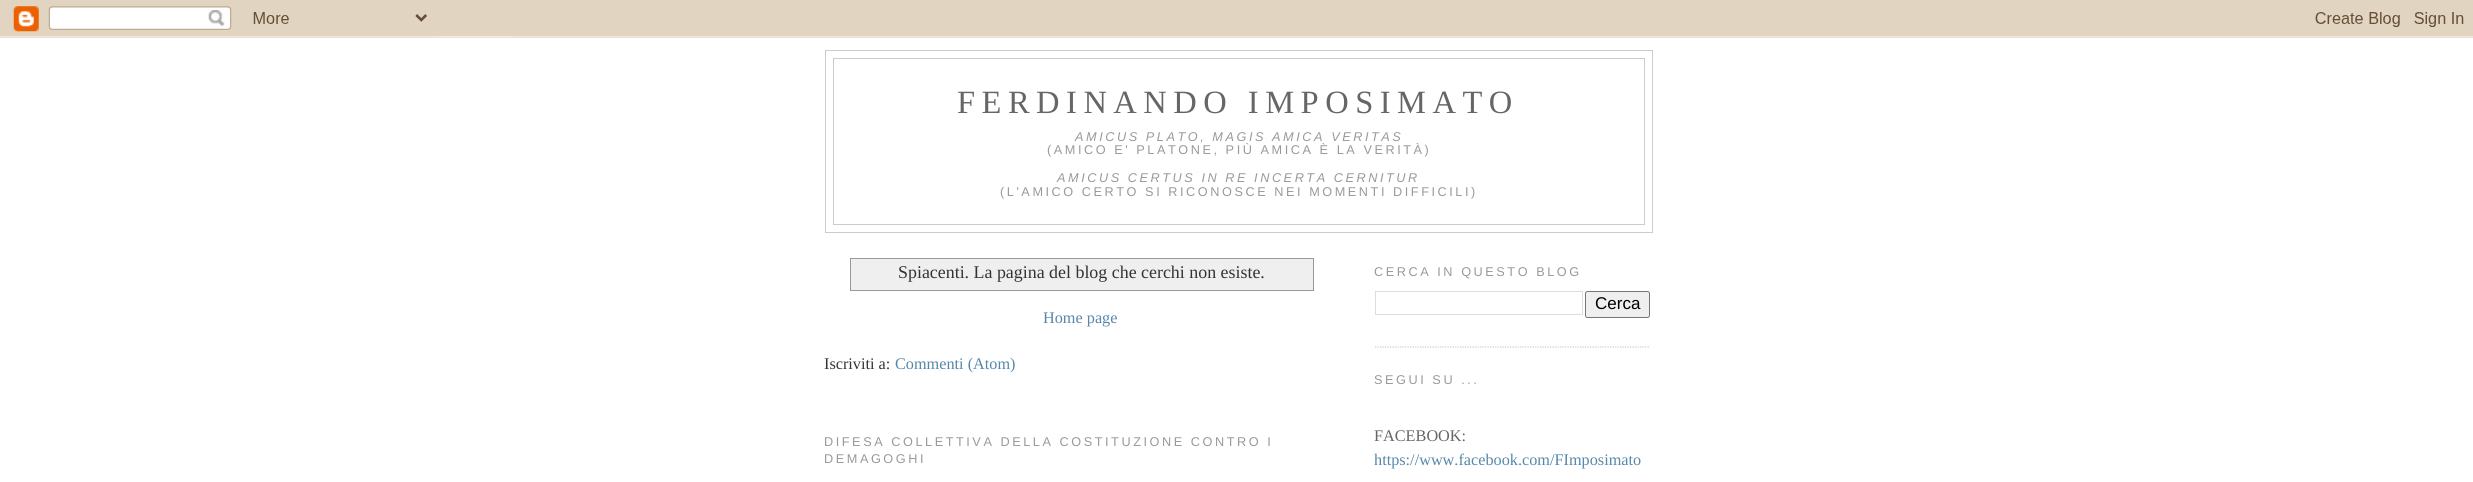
import math
import cairocffi as cairo

surface = cairo.ImageSurface(cairo.FORMAT_RGB24, 2473, 482)
cr = cairo.Context(surface)
options = cairo.FontOptions()
options.set_hint_metrics(cairo.HINT_METRICS_OFF)
options.set_hint_style(cairo.HINT_STYLE_NONE)
cr.set_font_options(options)
cr.set_miter_limit(4)


def use_color(code):
    cr.set_source_rgb(*(v / 255 for v in bytes.fromhex(code[-6:])))


def spaced_text(x, y, s, letter, word):
    cr.move_to(x, y)
    for ch in s:
        cr.show_text(ch)
        cr.rel_move_to(letter + word * (ch == ' '), 0)


def round_rect(x, y, w, h, r):
    cr.new_sub_path()
    for i, (u, v) in enumerate([(x + w - r, y + h - r), (x + r, y + h - r), (x + r, y + r), (x + w - r, y + r)]):
        cr.arc(u, v, r, i * math.pi / 2, (i + 1) * math.pi / 2)
    cr.close_path()


def picture(path, x, y, w, h):
    cr.save()
    cr.set_source_surface(cairo.ImageSurface.create_from_png(path), x, y)
    cr.rectangle(x, y, w, h)
    cr.fill()
    cr.restore()


use_color("#ffffff")
cr.paint()
picture("img1.png", 0, 0, 2473, 38)
cr.rectangle(825.5, 50.5, 827, 182)
use_color("#cccccc")
cr.set_line_width(1)
cr.stroke()
cr.rectangle(833.5, 58.5, 811, 166)
cr.stroke()
cr.select_font_face("Liberation Serif")
cr.set_font_size(32.5)
use_color("#666666")
spaced_text(957, 113, "FERDINANDO IMPOSIMATO", 6.5, 0)
cr.select_font_face("Liberation Sans", cairo.FONT_SLANT_ITALIC)
cr.set_font_size(12.7)
use_color("#999999")
spaced_text(1075, 141, "AMICUS PLATO, MAGIS AMICA VERITAS", 2.55, 0)
cr.select_font_face("Liberation Sans")
spaced_text(1047, 154, "(AMICO E' PLATONE, PIÙ AMICA È LA VERITÀ)", 2.55, 0)
cr.select_font_face("Liberation Sans", cairo.FONT_SLANT_ITALIC)
spaced_text(1057, 182, "AMICUS CERTUS IN RE INCERTA CERNITUR", 2.55, 0)
cr.select_font_face("Liberation Sans")
spaced_text(1000, 196, "(L'AMICO CERTO SI RICONOSCE NEI MOMENTI DIFFICILI)", 2.55, 0)
cr.rectangle(850.5, 258.5, 463, 32)
cr.stroke()
use_color("#efefef")
cr.rectangle(851, 259, 462, 31)
cr.fill()
cr.select_font_face("Liberation Serif")
cr.set_font_size(17.9)
use_color("#333333")
cr.move_to(898, 278)
cr.show_text("Spiacenti. La pagina del blog che cerchi non esiste.")
cr.set_font_size(16.25)
use_color("#5588aa")
cr.move_to(1043, 323)
cr.show_text("Home page")
use_color("#333333")
cr.move_to(824, 369)
cr.show_text("Iscriviti a:")
use_color("#5588aa")
cr.move_to(895, 369)
cr.show_text("Commenti (Atom)")
cr.select_font_face("Liberation Sans")
cr.set_font_size(12.7)
use_color("#999999")
spaced_text(824, 446, "DIFESA COLLETTIVA DELLA COSTITUZIONE CONTRO I", 2.55, 0)
spaced_text(824, 463, "DEMAGOGHI", 2.55, 0)
cr.new_path()
cr.move_to(1375, 347)
cr.line_to(1650, 347)
use_color("#cccccc")
cr.set_line_width(1.2)
cr.set_dash([1.25, 1.25])
cr.stroke()
use_color("#999999")
spaced_text(1374, 276, "CERCA IN QUESTO BLOG", 2.55, 0)
cr.rectangle(1375.5, 291.5, 207, 23)
use_color("#dddddd")
cr.set_line_width(1)
cr.set_dash([])
cr.stroke()
use_color("#efefef")
round_rect(1585.5, 291.5, 64, 26, 2)
cr.fill_preserve()
use_color("#767676")
cr.stroke()
cr.set_font_size(17)
use_color("#000000")
cr.move_to(1595, 309)
cr.show_text("Cerca")
cr.set_font_size(12.7)
use_color("#999999")
spaced_text(1374, 384, "SEGUI SU ...", 2.55, 0)
cr.select_font_face("Liberation Serif")
cr.set_font_size(16.25)
use_color("#666666")
cr.move_to(1374, 441)
cr.show_text("FACEBOOK:")
use_color("#5588aa")
cr.move_to(1374, 465)
cr.show_text("https://www.facebook.com/FImposimato")
surface.write_to_png("result.png")
